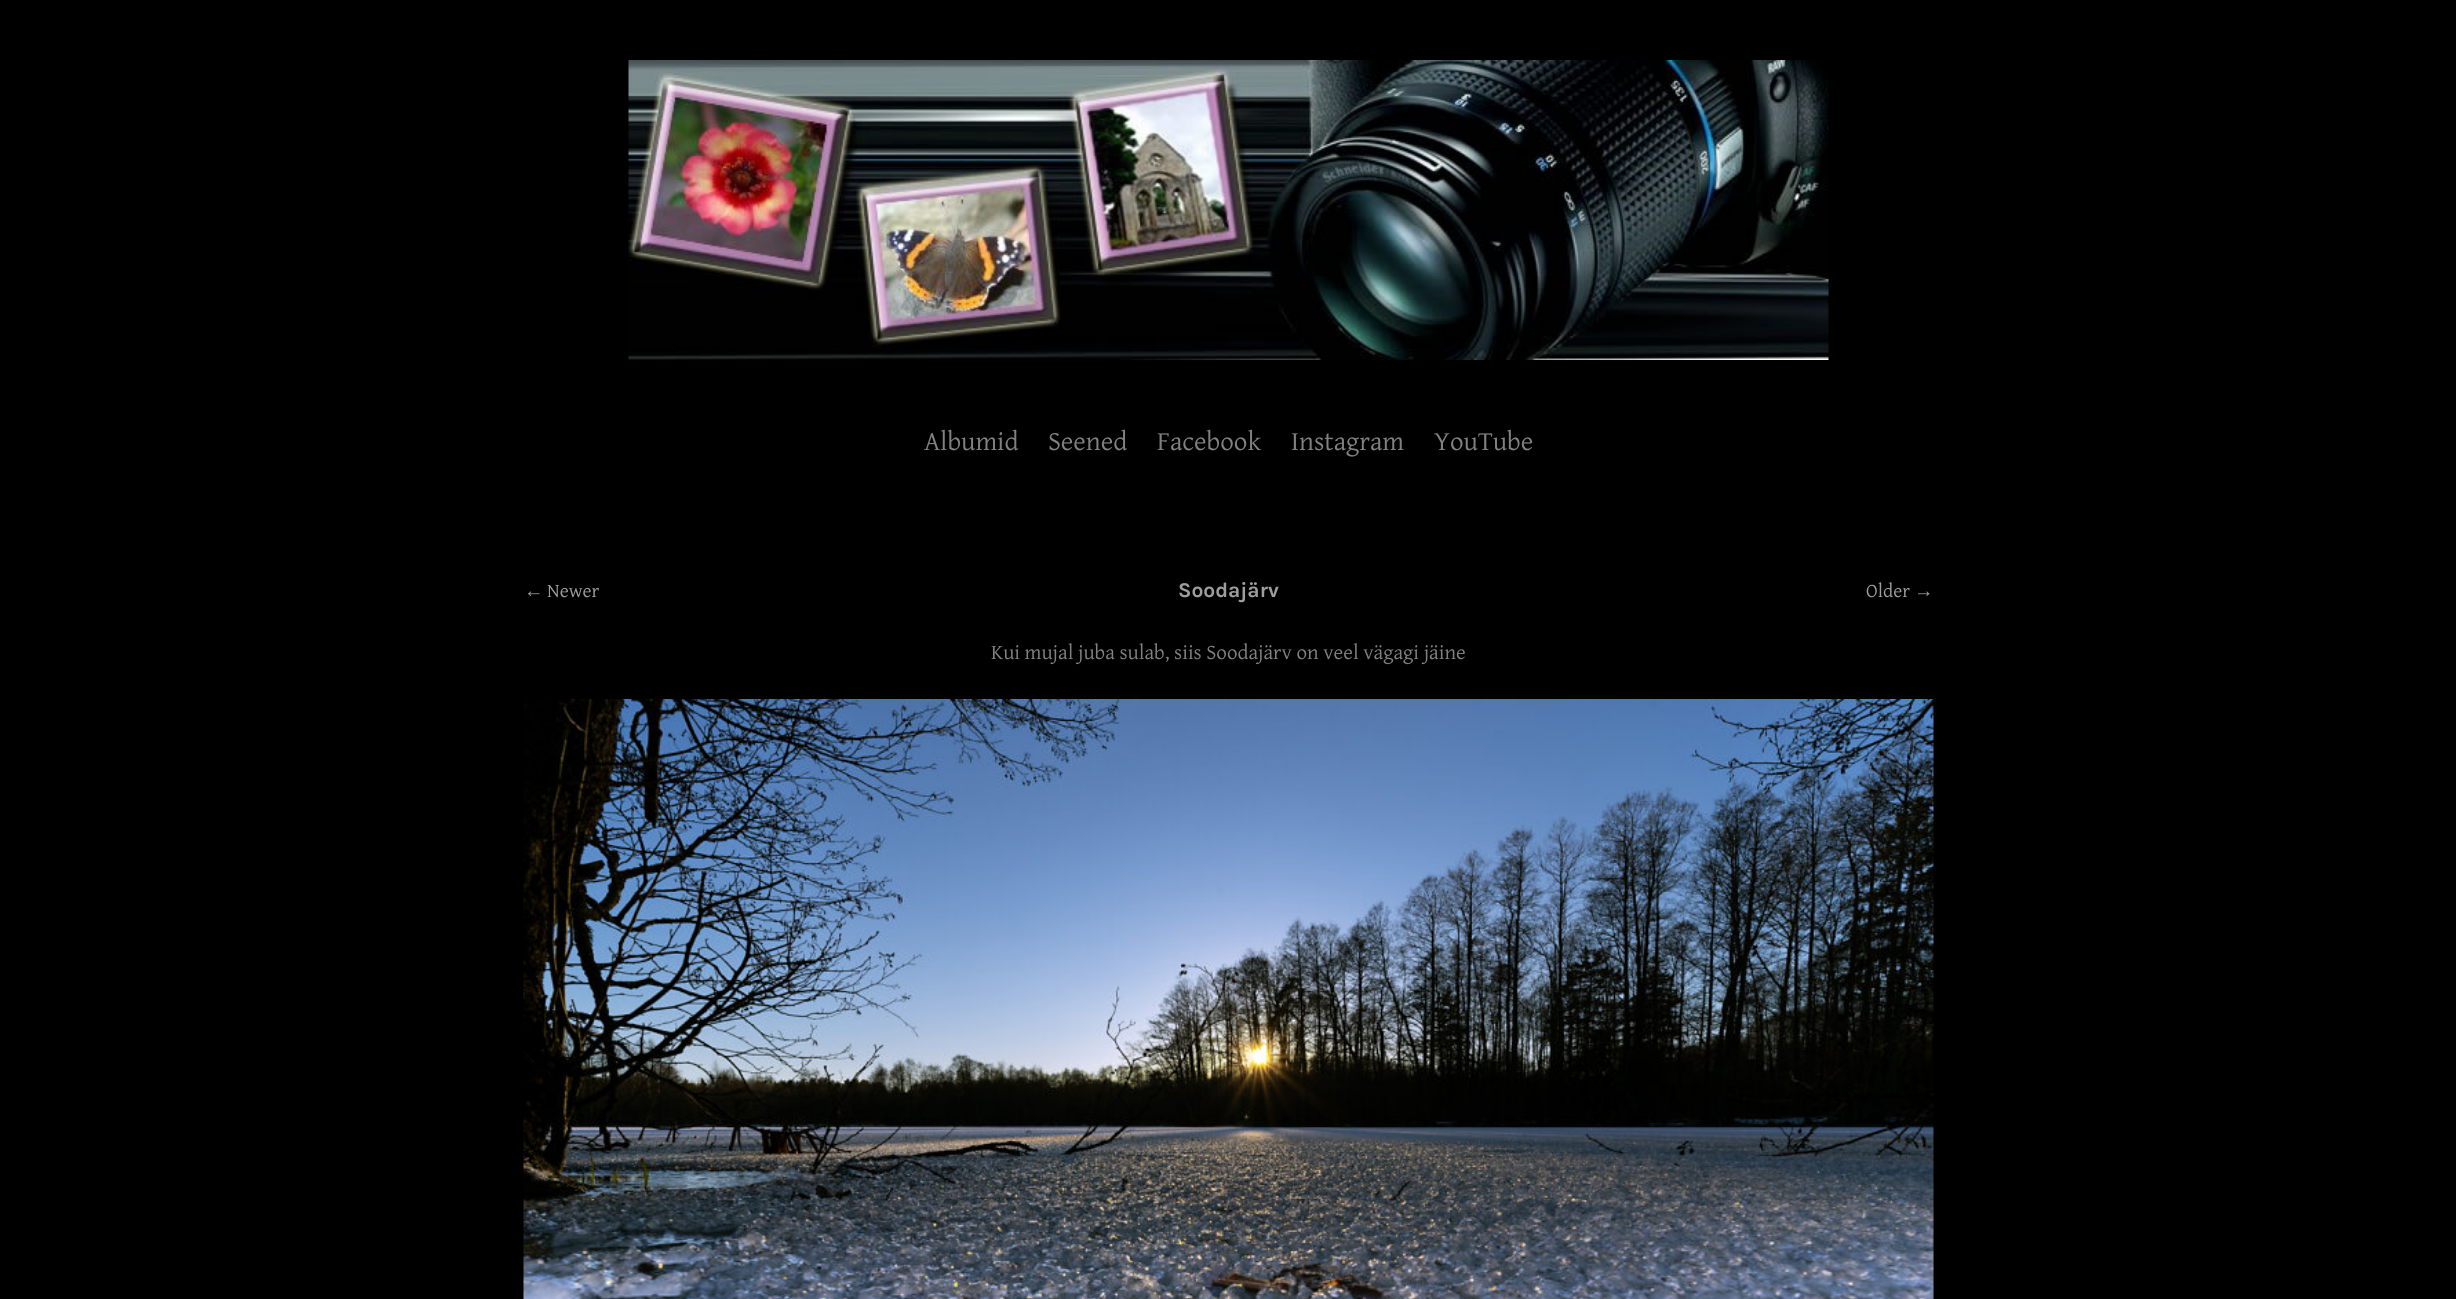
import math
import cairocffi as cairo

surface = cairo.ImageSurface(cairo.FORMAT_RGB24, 2456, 1299)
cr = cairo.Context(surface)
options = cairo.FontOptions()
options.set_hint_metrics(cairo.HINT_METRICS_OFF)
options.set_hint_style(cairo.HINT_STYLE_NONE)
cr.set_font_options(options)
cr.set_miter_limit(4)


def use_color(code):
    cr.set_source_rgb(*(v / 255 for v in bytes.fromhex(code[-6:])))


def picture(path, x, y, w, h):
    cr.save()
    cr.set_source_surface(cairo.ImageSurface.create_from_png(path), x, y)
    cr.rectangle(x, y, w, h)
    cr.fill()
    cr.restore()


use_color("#000000")
cr.paint()
picture("img1.png", 628, 60, 1201, 300)
cr.select_font_face("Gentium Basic")
cr.set_font_size(27)
use_color("#818181")
cr.move_to(924, 450)
cr.show_text("Albumid")
cr.move_to(1048, 450)
cr.show_text("Seened")
cr.move_to(1157, 450)
cr.show_text("Facebook")
cr.move_to(1291, 450)
cr.show_text("Instagram")
cr.move_to(1434, 450)
cr.show_text("YouTube")
cr.select_font_face("Liberation Serif")
cr.set_font_size(19.5)
use_color("#9e9e9e")
cr.move_to(524, 597)
cr.show_text("←")
cr.select_font_face("Gentium Basic")
cr.move_to(547, 597)
cr.show_text("Newer")
cr.select_font_face("Karla", cairo.FONT_SLANT_NORMAL, cairo.FONT_WEIGHT_BOLD)
cr.set_font_size(21)
cr.move_to(1178, 597)
cr.show_text("Soodajärv")
cr.select_font_face("Gentium Basic")
use_color("#818181")
cr.move_to(991, 659)
cr.show_text("Kui mujal juba sulab, siis Soodajärv on veel vägagi jäine")
cr.set_font_size(19.5)
use_color("#9e9e9e")
cr.move_to(1866, 597)
cr.show_text("Older")
cr.select_font_face("Liberation Serif")
cr.move_to(1914, 597)
cr.show_text("→")
picture("img2.png", 523, 699, 1411, 600)
surface.write_to_png("result.png")
